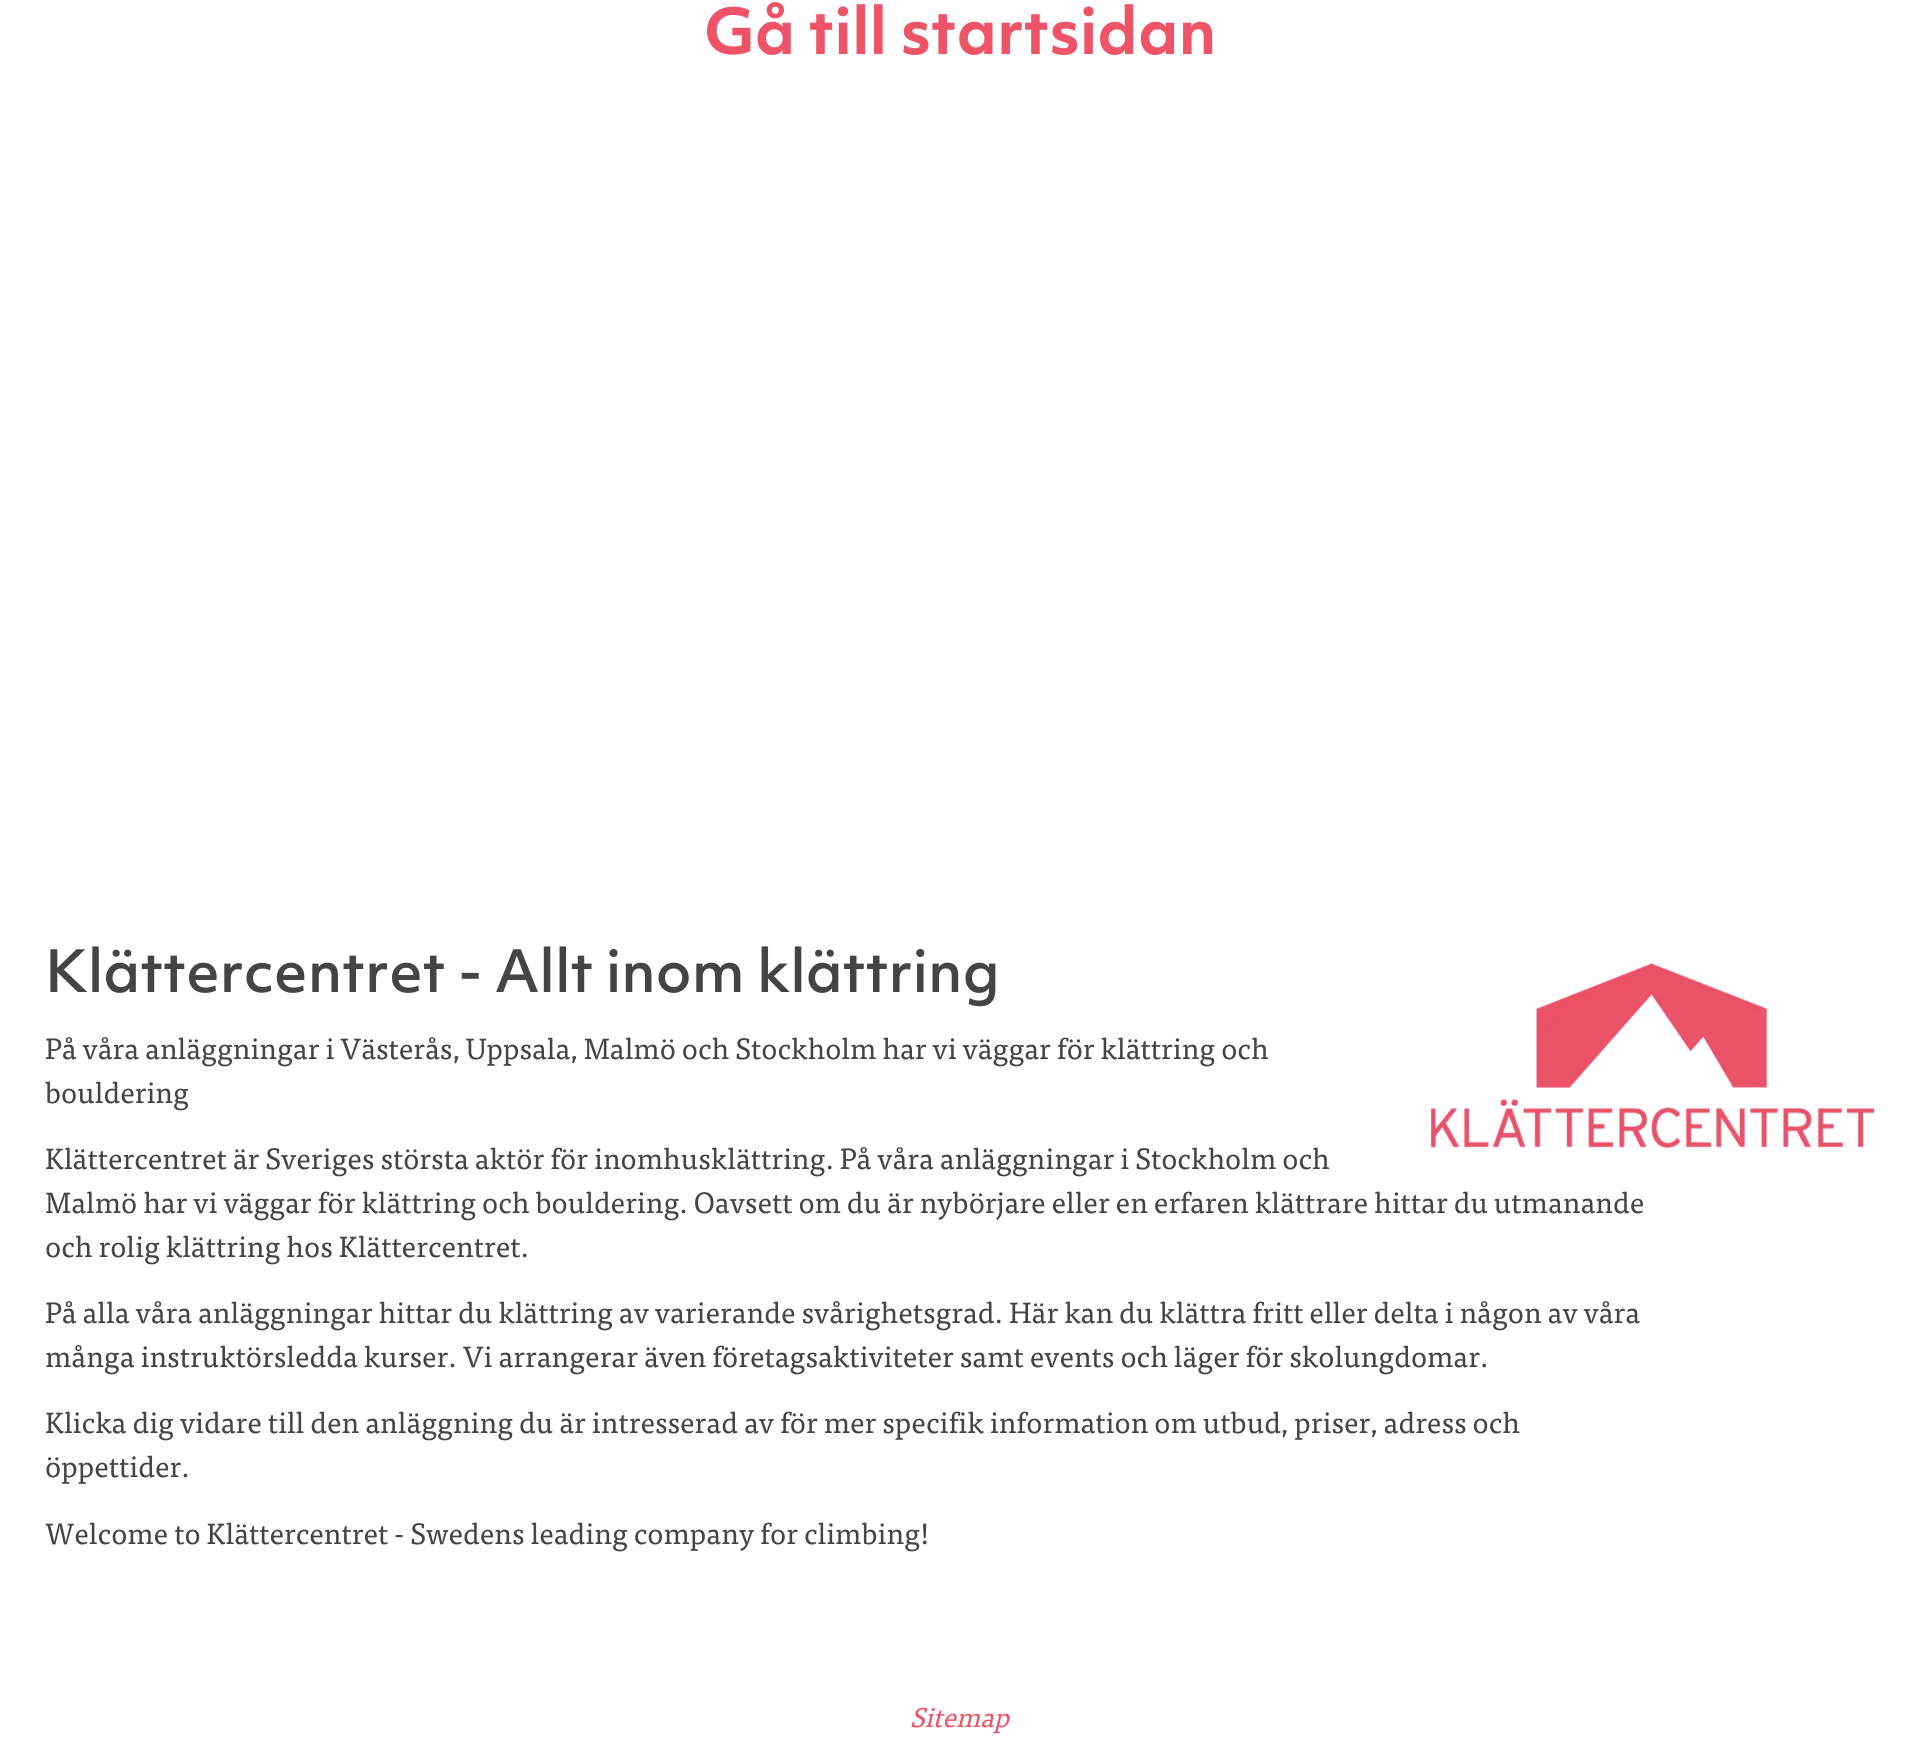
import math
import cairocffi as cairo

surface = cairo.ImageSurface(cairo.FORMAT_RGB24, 1919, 1738)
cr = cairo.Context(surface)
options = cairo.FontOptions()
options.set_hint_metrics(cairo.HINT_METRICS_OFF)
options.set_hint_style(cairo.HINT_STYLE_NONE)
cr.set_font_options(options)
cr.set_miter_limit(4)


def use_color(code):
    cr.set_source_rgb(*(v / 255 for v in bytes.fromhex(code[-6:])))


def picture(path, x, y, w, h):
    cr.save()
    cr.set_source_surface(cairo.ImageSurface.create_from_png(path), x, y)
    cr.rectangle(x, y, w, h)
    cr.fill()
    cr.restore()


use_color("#ffffff")
cr.paint()
cr.select_font_face("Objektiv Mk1", cairo.FONT_SLANT_NORMAL, cairo.FONT_WEIGHT_BOLD)
cr.set_font_size(61.5)
use_color("#ee5368")
cr.move_to(704, 54)
cr.show_text("Gå till startsidan")
cr.select_font_face("Objektiv Mk1 Medium")
cr.set_font_size(56.25)
use_color("#444444")
cr.move_to(45, 992)
cr.show_text("Klättercentret - Allt inom klättring")
cr.select_font_face("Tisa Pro")
cr.set_font_size(29.25)
cr.move_to(45, 1059)
cr.show_text("På våra anläggningar i Västerås, Uppsala, Malmö och Stockholm har vi väggar för klättring och")
cr.move_to(45, 1103)
cr.show_text("bouldering")
cr.move_to(45, 1169)
cr.show_text("Klättercentret är Sveriges största aktör för inomhusklättring. På våra anläggningar i Stockholm och")
cr.move_to(45, 1213)
cr.show_text("Malmö har vi väggar för klättring och bouldering. Oavsett om du är nybörjare eller en erfaren klättrare hittar du utmanande")
cr.move_to(45, 1257)
cr.show_text("och rolig klättring hos Klättercentret.")
cr.move_to(45, 1323)
cr.show_text("På alla våra anläggningar hittar du klättring av varierande svårighetsgrad. Här kan du klättra fritt eller delta i någon av våra")
cr.move_to(45, 1367)
cr.show_text("många instruktörsledda kurser. Vi arrangerar även företagsaktiviteter samt events och läger för skolungdomar.")
cr.move_to(45, 1433)
cr.show_text("Klicka dig vidare till den anläggning du är intresserad av för mer specifik information om utbud, priser, adress och")
cr.move_to(45, 1477)
cr.show_text("öppettider.")
cr.move_to(45, 1544)
cr.show_text("Welcome to Klättercentret - Swedens leading company for climbing!")
picture("img1.png", 1430, 962, 445, 186)
cr.select_font_face("Tisa Pro", cairo.FONT_SLANT_ITALIC)
cr.set_font_size(27)
use_color("#ee5368")
cr.move_to(910, 1727)
cr.show_text("Sitemap")
surface.write_to_png("result.png")
